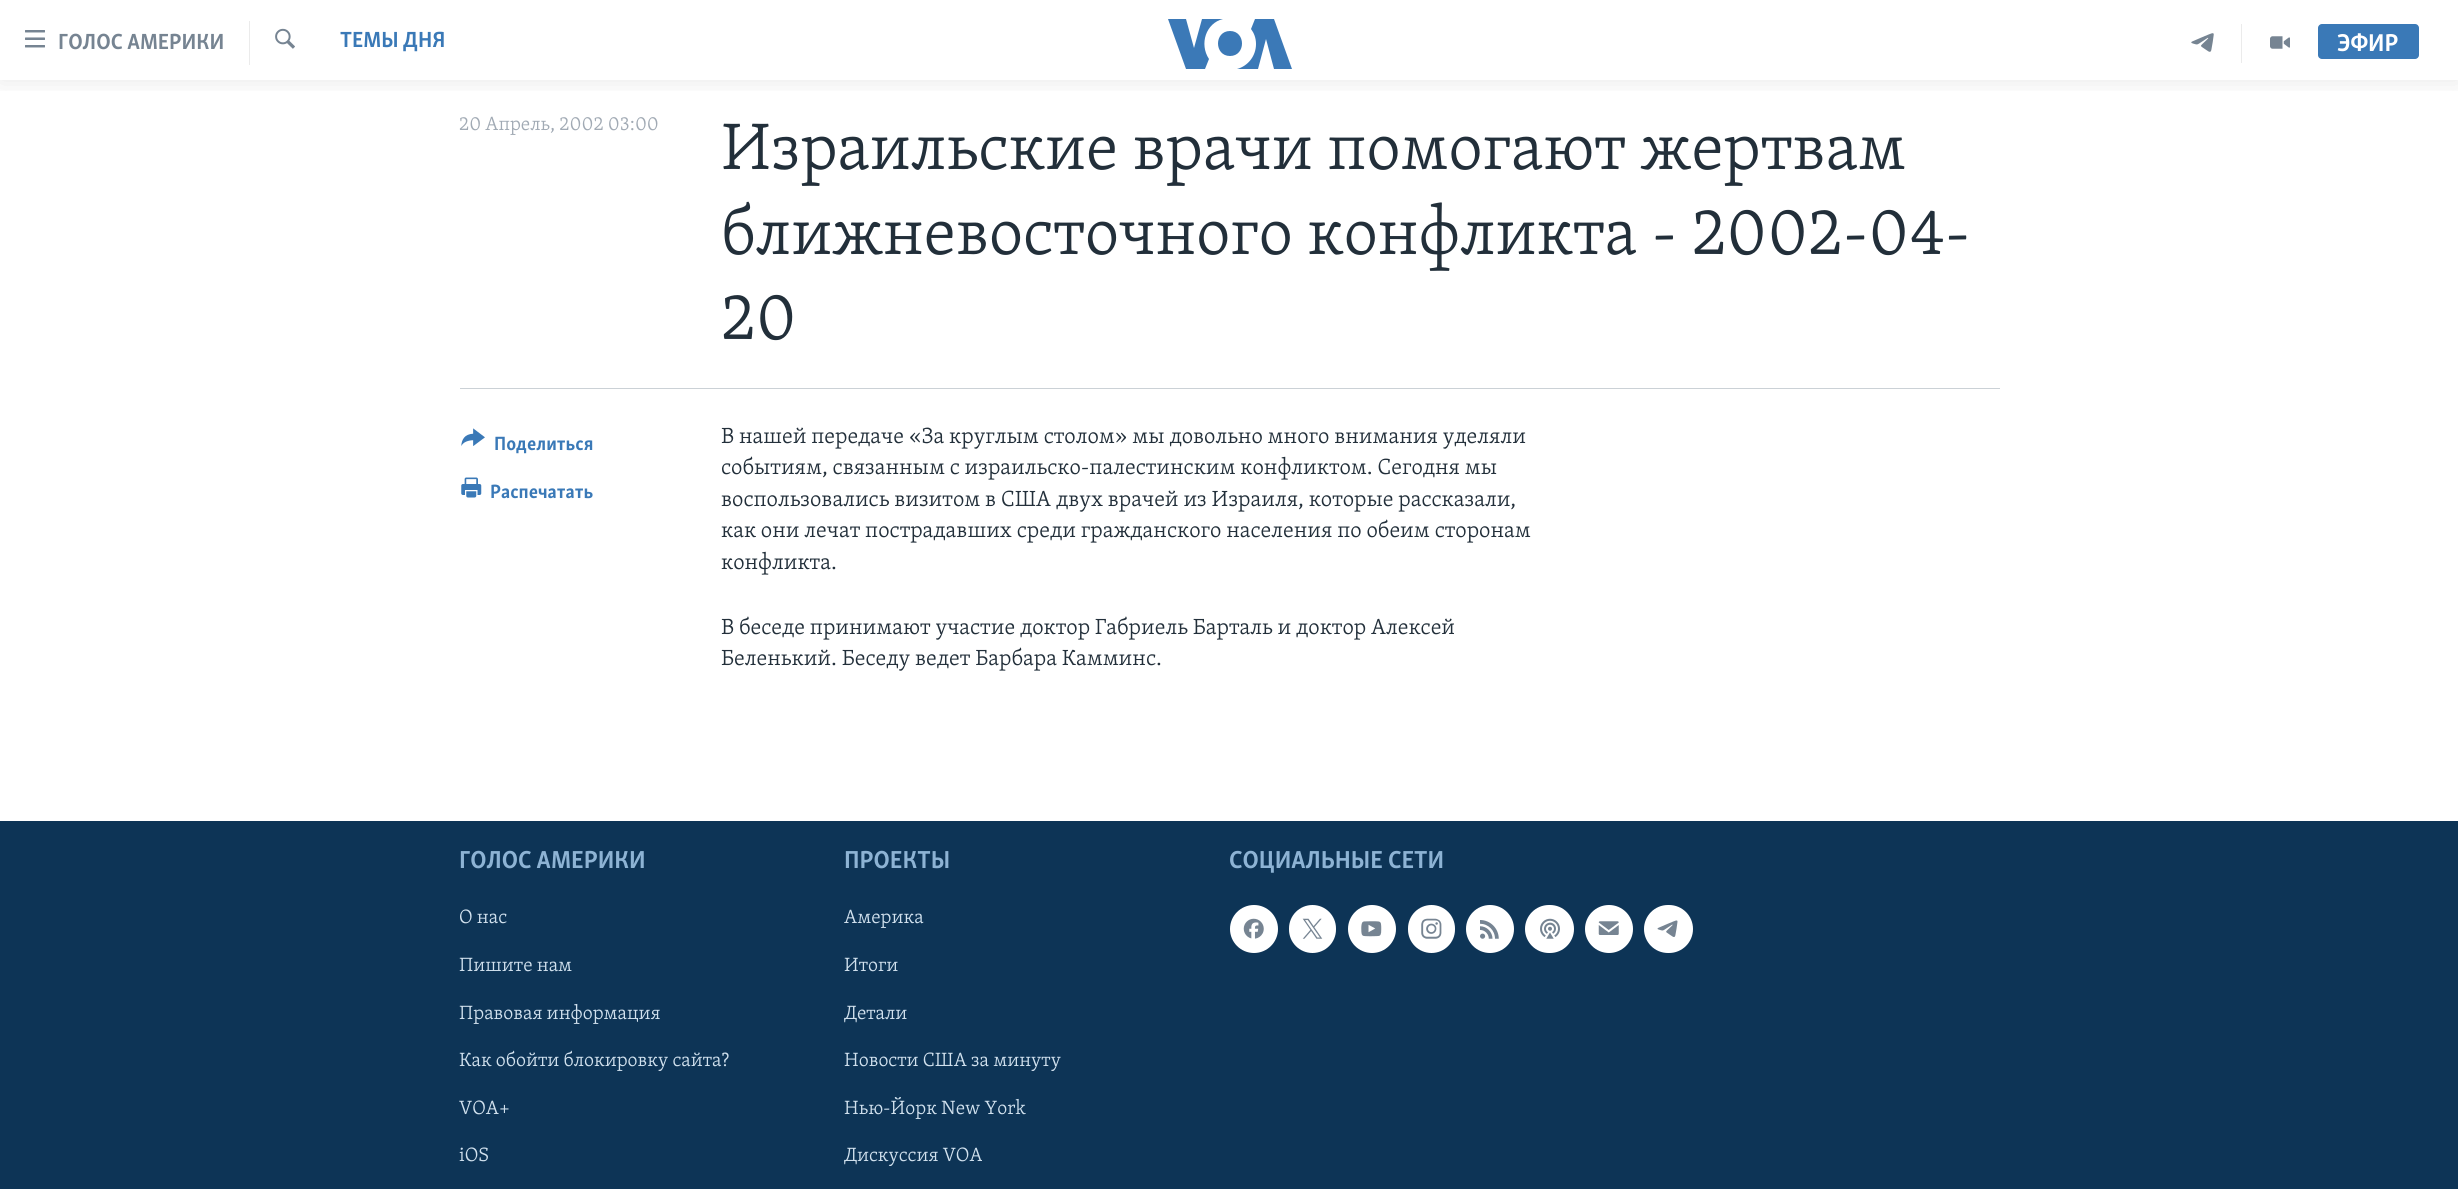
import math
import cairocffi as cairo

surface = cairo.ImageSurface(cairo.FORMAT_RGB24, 2458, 1189)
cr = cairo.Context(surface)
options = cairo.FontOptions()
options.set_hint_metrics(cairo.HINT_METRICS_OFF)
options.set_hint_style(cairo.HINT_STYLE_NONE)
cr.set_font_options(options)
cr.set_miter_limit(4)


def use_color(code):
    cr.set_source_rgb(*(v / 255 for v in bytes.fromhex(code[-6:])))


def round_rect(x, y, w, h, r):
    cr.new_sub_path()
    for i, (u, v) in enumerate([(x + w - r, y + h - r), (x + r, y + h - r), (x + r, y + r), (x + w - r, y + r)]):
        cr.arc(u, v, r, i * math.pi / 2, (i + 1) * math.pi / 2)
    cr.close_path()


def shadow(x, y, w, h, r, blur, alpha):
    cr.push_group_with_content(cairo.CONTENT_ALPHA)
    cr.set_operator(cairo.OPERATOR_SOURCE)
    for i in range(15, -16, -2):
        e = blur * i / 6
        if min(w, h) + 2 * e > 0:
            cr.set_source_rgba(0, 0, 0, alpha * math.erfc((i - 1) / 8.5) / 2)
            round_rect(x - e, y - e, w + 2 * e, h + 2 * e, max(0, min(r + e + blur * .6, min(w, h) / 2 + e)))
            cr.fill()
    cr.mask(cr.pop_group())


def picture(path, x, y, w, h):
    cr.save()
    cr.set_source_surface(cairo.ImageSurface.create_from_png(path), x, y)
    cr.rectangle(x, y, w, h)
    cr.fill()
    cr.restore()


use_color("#ffffff")
cr.paint()
cr.save()
cr.rectangle(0, 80, 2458, 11)
cr.clip()
use_color("#000000")
shadow(0, 0, 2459, 80, 0, 12.5, 0.1)
cr.restore()
picture("img1.png", 25, 30, 20, 18)
cr.select_font_face("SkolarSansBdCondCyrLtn", cairo.FONT_SLANT_NORMAL, cairo.FONT_WEIGHT_BOLD)
cr.set_font_size(22.5)
use_color("#768492")
cr.move_to(58, 49)
cr.show_text("ГОЛОС АМЕРИКИ")
use_color("#ebebeb")
cr.rectangle(249, 21, 1, 44)
cr.fill()
picture("img2.png", 275, 28, 20, 21)
use_color("#3a79b7")
cr.move_to(340, 47)
cr.show_text("ТЕМЫ ДНЯ")
use_color("#3b79b7")
cr.new_path()
cr.move_to(1209, 59)
cr.line_to(1205, 69)
cr.line_to(1186, 69)
cr.line_to(1168, 19)
cr.line_to(1186, 19)
cr.line_to(1194, 48)
cr.line_to(1202, 19)
cr.line_to(1223, 19)
cr.curve_to(1206, 23, 1199, 44, 1209, 59)
cr.close_path()
cr.move_to(1230, 31)
cr.curve_to(1214, 31, 1214, 56, 1230, 56)
cr.curve_to(1246, 56, 1246, 31, 1230, 31)
cr.close_path()
cr.move_to(1256, 44)
cr.curve_to(1256, 56, 1248, 66, 1237, 69)
cr.line_to(1258, 69)
cr.line_to(1266, 39)
cr.line_to(1274, 69)
cr.line_to(1292, 69)
cr.line_to(1274, 19)
cr.line_to(1255, 19)
cr.line_to(1251, 29)
cr.curve_to(1254, 33, 1256, 38, 1256, 44)
cr.close_path()
cr.fill()
use_color("#ebebeb")
cr.rectangle(2241, 24, 1, 39)
cr.fill()
picture("img3.png", 2191, 33, 23, 19)
picture("img4.png", 2270, 36, 20, 13)
use_color("#3a79b7")
round_rect(2318, 24, 101, 35, 4)
cr.fill()
cr.set_font_size(25)
use_color("#ffffff")
cr.move_to(2337, 51)
cr.show_text("ЭФИР")
cr.select_font_face("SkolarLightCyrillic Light")
cr.set_font_size(19.75)
use_color("#a1aab4")
cr.move_to(459, 130)
cr.show_text("20 Апрель, 2002 03:00")
cr.set_font_size(67.5)
use_color("#222f3a")
cr.move_to(721, 169)
cr.show_text("Израильские врачи помогают жертвам")
cr.move_to(721, 254)
cr.show_text("ближневосточного конфликта - 2002-04-")
cr.move_to(721, 339)
cr.show_text("20")
use_color("#cbd1d6")
cr.rectangle(460, 388, 1540, 1)
cr.fill()
picture("img5.png", 461, 428, 24, 18)
cr.select_font_face("SkolarSansBdCondCyrLtn", cairo.FONT_SLANT_NORMAL, cairo.FONT_WEIGHT_BOLD)
cr.set_font_size(19.75)
use_color("#3a79b7")
cr.move_to(494, 450)
cr.show_text("Поделиться")
picture("img6.png", 461, 477, 21, 21)
cr.move_to(490, 498)
cr.show_text("Распечатать")
cr.select_font_face("SkolarLightCyrillic Light")
cr.set_font_size(22.5)
use_color("#222f3a")
cr.move_to(721, 443)
cr.show_text("В нашей передаче «За круглым столом» мы довольно много внимания уделяли")
cr.move_to(721, 474)
cr.show_text("событиям, связанным с израильско-палестинским конфликтом. Сегодня мы")
cr.move_to(721, 506)
cr.show_text("воспользовались визитом в США двух врачей из Израиля, которые рассказали,")
cr.move_to(721, 537)
cr.show_text("как они лечат пострадавших среди гражданского населения по обеим сторонам")
cr.move_to(721, 569)
cr.show_text("конфликта.")
cr.move_to(721, 634)
cr.show_text("В беседе принимают участие доктор Габриель Барталь и доктор Алексей")
cr.move_to(721, 665)
cr.show_text("Беленький. Беседу ведет Барбара Камминс.")
use_color("#0d3456")
cr.rectangle(0, 821, 2458, 368)
cr.fill()
cr.select_font_face("SkolarSansBdCondCyrLtn", cairo.FONT_SLANT_NORMAL, cairo.FONT_WEIGHT_BOLD)
cr.set_font_size(25.25)
use_color("#8db3d4")
cr.move_to(459, 868)
cr.show_text("ГОЛОС АМЕРИКИ")
cr.select_font_face("SkolarLightCyrillic Light")
cr.set_font_size(19.75)
use_color("#d1e1ee")
cr.move_to(459, 923)
cr.show_text("О нас")
cr.move_to(459, 971)
cr.show_text("Пишите нам")
cr.move_to(459, 1019)
cr.show_text("Правовая информация")
cr.move_to(459, 1066)
cr.show_text("Как обойти блокировку сайта?")
cr.move_to(459, 1114)
cr.show_text("VOA+")
cr.move_to(459, 1161)
cr.show_text("iOS")
cr.select_font_face("SkolarSansBdCondCyrLtn", cairo.FONT_SLANT_NORMAL, cairo.FONT_WEIGHT_BOLD)
cr.set_font_size(25.25)
use_color("#8db3d4")
cr.move_to(844, 868)
cr.show_text("ПРОЕКТЫ")
cr.select_font_face("SkolarLightCyrillic Light")
cr.set_font_size(19.75)
use_color("#d1e1ee")
cr.move_to(844, 923)
cr.show_text("Америка")
cr.move_to(844, 971)
cr.show_text("Итоги")
cr.move_to(844, 1019)
cr.show_text("Детали")
cr.move_to(844, 1066)
cr.show_text("Новости США за минуту")
cr.move_to(844, 1114)
cr.show_text("Нью-Йорк New York")
cr.move_to(844, 1161)
cr.show_text("Дискуссия VOA")
cr.select_font_face("SkolarSansBdCondCyrLtn", cairo.FONT_SLANT_NORMAL, cairo.FONT_WEIGHT_BOLD)
cr.set_font_size(25.25)
use_color("#8db3d4")
cr.move_to(1229, 868)
cr.show_text("СОЦИАЛЬНЫЕ СЕТИ")
use_color("#ffffff")
cr.new_path()
cr.arc(1254, 929, 24, 0, 2 * math.pi)
cr.fill()
picture("img7.png", 1243, 918, 21, 21)
round_rect(1289, 905, 47, 48, 23.5)
cr.fill()
picture("img8.png", 1302, 918, 21, 21)
cr.arc(1372, 929, 24, 0, 2 * math.pi)
cr.fill()
picture("img9.png", 1361, 921, 21, 16)
round_rect(1408, 905, 47, 48, 23.5)
cr.fill()
picture("img10.png", 1421, 918, 21, 21)
cr.arc(1490, 929, 24, 0, 2 * math.pi)
cr.fill()
picture("img11.png", 1480, 920, 19, 19)
round_rect(1525, 905, 49, 48, 24)
cr.fill()
picture("img12.png", 1540, 918, 20, 21)
cr.arc(1609, 929, 24, 0, 2 * math.pi)
cr.fill()
picture("img13.png", 1598, 921, 21, 14)
round_rect(1644, 905, 49, 48, 24)
cr.fill()
picture("img14.png", 1657, 920, 21, 17)
surface.write_to_png("result.png")
